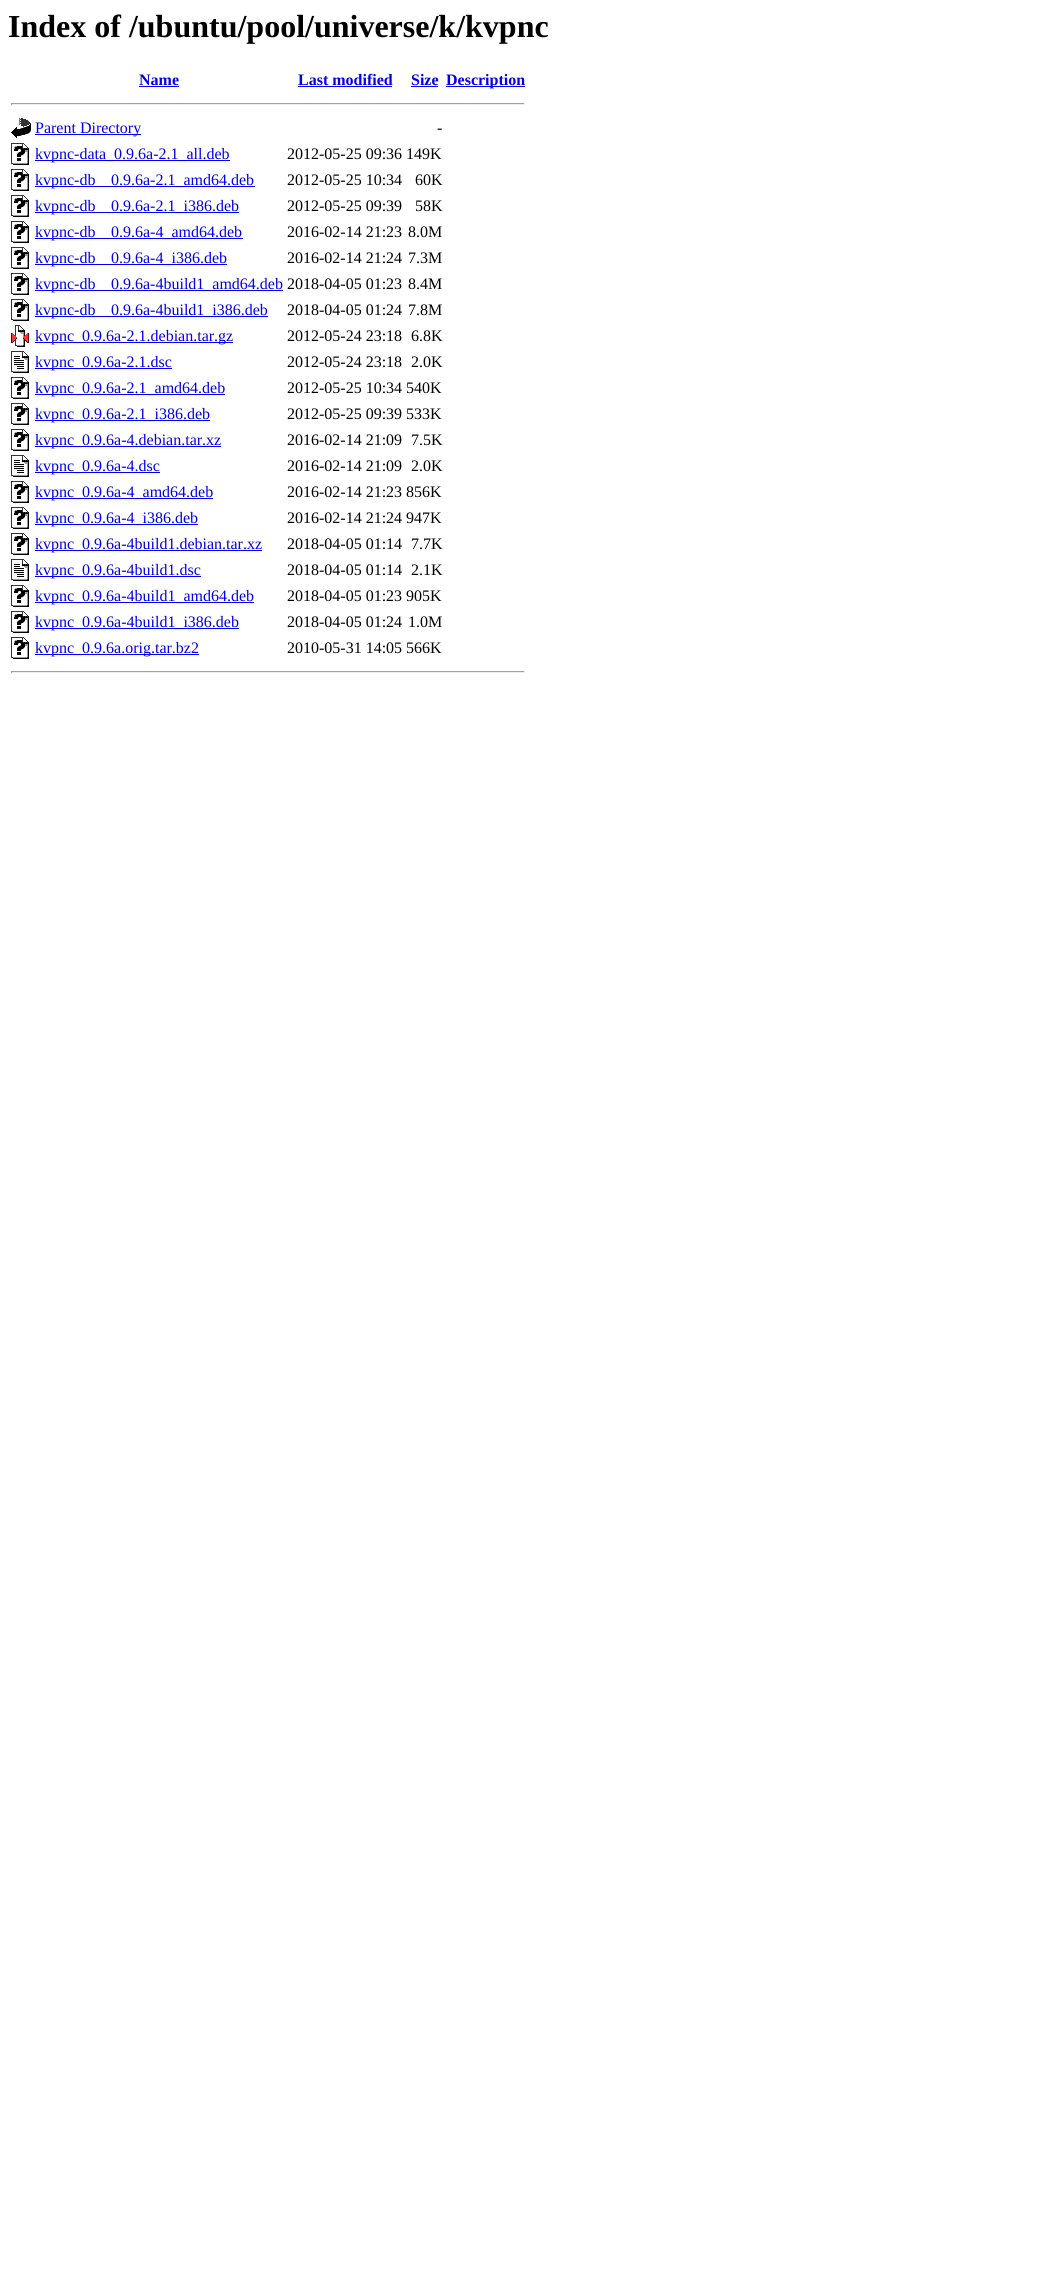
import math
import cairocffi as cairo

surface = cairo.ImageSurface(cairo.FORMAT_RGB24, 1048, 2270)
cr = cairo.Context(surface)
options = cairo.FontOptions()
options.set_hint_metrics(cairo.HINT_METRICS_OFF)
options.set_hint_style(cairo.HINT_STYLE_NONE)
cr.set_font_options(options)
cr.set_miter_limit(4)


def use_color(code):
    cr.set_source_rgb(*(v / 255 for v in bytes.fromhex(code[-6:])))


def picture(path, x, y, w, h):
    cr.save()
    cr.set_source_surface(cairo.ImageSurface.create_from_png(path), x, y)
    cr.rectangle(x, y, w, h)
    cr.fill()
    cr.restore()


use_color("#ffffff")
cr.paint()
cr.select_font_face("Liberation Serif", cairo.FONT_SLANT_NORMAL, cairo.FONT_WEIGHT_BOLD)
cr.set_font_size(32)
use_color("#000000")
cr.move_to(8, 37)
cr.show_text("Index of /ubuntu/pool/universe/k/kvpnc")
cr.set_font_size(16)
use_color("#0000ee")
cr.move_to(139, 85)
cr.show_text("Name")
cr.rectangle(139, 86, 40, 1)
cr.fill()
cr.move_to(298, 85)
cr.show_text("Last modified")
cr.rectangle(298, 86, 94, 1)
cr.fill()
cr.move_to(411, 85)
cr.show_text("Size")
cr.rectangle(411, 86, 27, 1)
cr.fill()
cr.rectangle(446, 86, 79, 1)
cr.fill()
cr.move_to(446, 85)
cr.show_text("Description")
use_color("#9f9f9f")
cr.rectangle(11, 103, 514, 1)
cr.fill()
use_color("#eeeeee")
cr.rectangle(524, 103, 1, 2)
cr.fill()
cr.rectangle(11, 104, 514, 1)
cr.fill()
use_color("#9f9f9f")
cr.rectangle(11, 103, 1, 2)
cr.fill()
picture("img1.png", 11, 118, 20, 20)
use_color("#0000ee")
cr.rectangle(35, 134, 106, 1)
cr.fill()
cr.select_font_face("Liberation Serif")
cr.move_to(35, 133)
cr.show_text("Parent Directory")
use_color("#000000")
cr.move_to(437, 133)
cr.show_text("-")
picture("img2.png", 11, 143, 18, 22)
use_color("#0000ee")
cr.rectangle(35, 160, 195, 1)
cr.fill()
cr.move_to(35, 159)
cr.show_text("kvpnc-data_0.9.6a-2.1_all.deb")
use_color("#000000")
cr.move_to(287, 159)
cr.show_text("2012-05-25 09:36 149K")
picture("img2.png", 11, 169, 18, 22)
use_color("#0000ee")
cr.rectangle(35, 186, 220, 1)
cr.fill()
cr.move_to(35, 185)
cr.show_text("kvpnc-db")
cr.move_to(111, 185)
cr.show_text("0.9.6a-2.1_amd64.deb")
use_color("#000000")
cr.move_to(287, 185)
cr.show_text("2012-05-25 10:34")
cr.move_to(415, 185)
cr.show_text("60K")
picture("img2.png", 11, 195, 18, 22)
use_color("#0000ee")
cr.rectangle(35, 212, 204, 1)
cr.fill()
cr.move_to(35, 211)
cr.show_text("kvpnc-db")
cr.move_to(111, 211)
cr.show_text("0.9.6a-2.1_i386.deb")
use_color("#000000")
cr.move_to(287, 211)
cr.show_text("2012-05-25 09:39")
cr.move_to(415, 211)
cr.show_text("58K")
picture("img2.png", 11, 221, 18, 22)
use_color("#0000ee")
cr.rectangle(35, 238, 208, 1)
cr.fill()
cr.move_to(35, 237)
cr.show_text("kvpnc-db")
cr.move_to(111, 237)
cr.show_text("0.9.6a-4_amd64.deb")
use_color("#000000")
cr.move_to(287, 237)
cr.show_text("2016-02-14 21:23")
cr.move_to(408, 237)
cr.show_text("8.0M")
picture("img2.png", 11, 247, 18, 22)
use_color("#0000ee")
cr.rectangle(35, 264, 192, 1)
cr.fill()
cr.move_to(35, 263)
cr.show_text("kvpnc-db")
cr.move_to(111, 263)
cr.show_text("0.9.6a-4_i386.deb")
use_color("#000000")
cr.move_to(287, 263)
cr.show_text("2016-02-14 21:24")
cr.move_to(408, 263)
cr.show_text("7.3M")
picture("img2.png", 11, 273, 18, 22)
use_color("#0000ee")
cr.rectangle(35, 290, 248, 1)
cr.fill()
cr.move_to(35, 289)
cr.show_text("kvpnc-db")
cr.move_to(111, 289)
cr.show_text("0.9.6a-4build1_amd64.deb")
use_color("#000000")
cr.move_to(287, 289)
cr.show_text("2018-04-05 01:23")
cr.move_to(408, 289)
cr.show_text("8.4M")
picture("img2.png", 11, 299, 18, 22)
use_color("#0000ee")
cr.rectangle(35, 316, 233, 1)
cr.fill()
cr.move_to(35, 315)
cr.show_text("kvpnc-db")
cr.move_to(111, 315)
cr.show_text("0.9.6a-4build1_i386.deb")
use_color("#000000")
cr.move_to(287, 315)
cr.show_text("2018-04-05 01:24")
cr.move_to(408, 315)
cr.show_text("7.8M")
picture("img3.png", 11, 325, 18, 22)
use_color("#0000ee")
cr.rectangle(35, 342, 198, 1)
cr.fill()
cr.move_to(35, 341)
cr.show_text("kvpnc_0.9.6a-2.1.debian.tar.gz")
use_color("#000000")
cr.move_to(287, 341)
cr.show_text("2012-05-24 23:18")
cr.move_to(411, 341)
cr.show_text("6.8K")
picture("img4.png", 11, 351, 18, 22)
use_color("#0000ee")
cr.rectangle(35, 368, 137, 1)
cr.fill()
cr.move_to(35, 367)
cr.show_text("kvpnc_0.9.6a-2.1.dsc")
use_color("#000000")
cr.move_to(287, 367)
cr.show_text("2012-05-24 23:18")
cr.move_to(411, 367)
cr.show_text("2.0K")
picture("img2.png", 11, 377, 18, 22)
use_color("#0000ee")
cr.rectangle(35, 394, 190, 1)
cr.fill()
cr.move_to(35, 393)
cr.show_text("kvpnc_0.9.6a-2.1_amd64.deb")
use_color("#000000")
cr.move_to(287, 393)
cr.show_text("2012-05-25 10:34 540K")
picture("img2.png", 11, 403, 18, 22)
use_color("#0000ee")
cr.rectangle(35, 420, 175, 1)
cr.fill()
cr.move_to(35, 419)
cr.show_text("kvpnc_0.9.6a-2.1_i386.deb")
use_color("#000000")
cr.move_to(287, 419)
cr.show_text("2012-05-25 09:39 533K")
picture("img2.png", 11, 429, 18, 22)
use_color("#0000ee")
cr.rectangle(35, 446, 186, 1)
cr.fill()
cr.move_to(35, 445)
cr.show_text("kvpnc_0.9.6a-4.debian.tar.xz")
use_color("#000000")
cr.move_to(287, 445)
cr.show_text("2016-02-14 21:09")
cr.move_to(411, 445)
cr.show_text("7.5K")
picture("img4.png", 11, 455, 18, 22)
use_color("#0000ee")
cr.rectangle(35, 472, 125, 1)
cr.fill()
cr.move_to(35, 471)
cr.show_text("kvpnc_0.9.6a-4.dsc")
use_color("#000000")
cr.move_to(287, 471)
cr.show_text("2016-02-14 21:09")
cr.move_to(411, 471)
cr.show_text("2.0K")
picture("img2.png", 11, 481, 18, 22)
use_color("#0000ee")
cr.rectangle(35, 498, 178, 1)
cr.fill()
cr.move_to(35, 497)
cr.show_text("kvpnc_0.9.6a-4_amd64.deb")
use_color("#000000")
cr.move_to(287, 497)
cr.show_text("2016-02-14 21:23 856K")
picture("img2.png", 11, 507, 18, 22)
use_color("#0000ee")
cr.rectangle(35, 524, 163, 1)
cr.fill()
cr.move_to(35, 523)
cr.show_text("kvpnc_0.9.6a-4_i386.deb")
use_color("#000000")
cr.move_to(287, 523)
cr.show_text("2016-02-14 21:24 947K")
picture("img2.png", 11, 533, 18, 22)
use_color("#0000ee")
cr.rectangle(35, 550, 227, 1)
cr.fill()
cr.move_to(35, 549)
cr.show_text("kvpnc_0.9.6a-4build1.debian.tar.xz")
use_color("#000000")
cr.move_to(287, 549)
cr.show_text("2018-04-05 01:14")
cr.move_to(411, 549)
cr.show_text("7.7K")
picture("img4.png", 11, 559, 18, 22)
use_color("#0000ee")
cr.rectangle(35, 576, 166, 1)
cr.fill()
cr.move_to(35, 575)
cr.show_text("kvpnc_0.9.6a-4build1.dsc")
use_color("#000000")
cr.move_to(287, 575)
cr.show_text("2018-04-05 01:14")
cr.move_to(411, 575)
cr.show_text("2.1K")
picture("img2.png", 11, 585, 18, 22)
use_color("#0000ee")
cr.rectangle(35, 602, 219, 1)
cr.fill()
cr.move_to(35, 601)
cr.show_text("kvpnc_0.9.6a-4build1_amd64.deb")
use_color("#000000")
cr.move_to(287, 601)
cr.show_text("2018-04-05 01:23 905K")
picture("img2.png", 11, 611, 18, 22)
use_color("#0000ee")
cr.rectangle(35, 628, 204, 1)
cr.fill()
cr.move_to(35, 627)
cr.show_text("kvpnc_0.9.6a-4build1_i386.deb")
use_color("#000000")
cr.move_to(287, 627)
cr.show_text("2018-04-05 01:24")
cr.move_to(408, 627)
cr.show_text("1.0M")
picture("img2.png", 11, 637, 18, 22)
use_color("#0000ee")
cr.rectangle(35, 654, 164, 1)
cr.fill()
cr.move_to(35, 653)
cr.show_text("kvpnc_0.9.6a.orig.tar.bz2")
use_color("#000000")
cr.move_to(287, 653)
cr.show_text("2010-05-31 14:05 566K")
use_color("#9f9f9f")
cr.rectangle(11, 671, 514, 1)
cr.fill()
use_color("#eeeeee")
cr.rectangle(524, 671, 1, 2)
cr.fill()
cr.rectangle(11, 672, 514, 1)
cr.fill()
use_color("#9f9f9f")
cr.rectangle(11, 671, 1, 2)
cr.fill()
surface.write_to_png("result.png")
